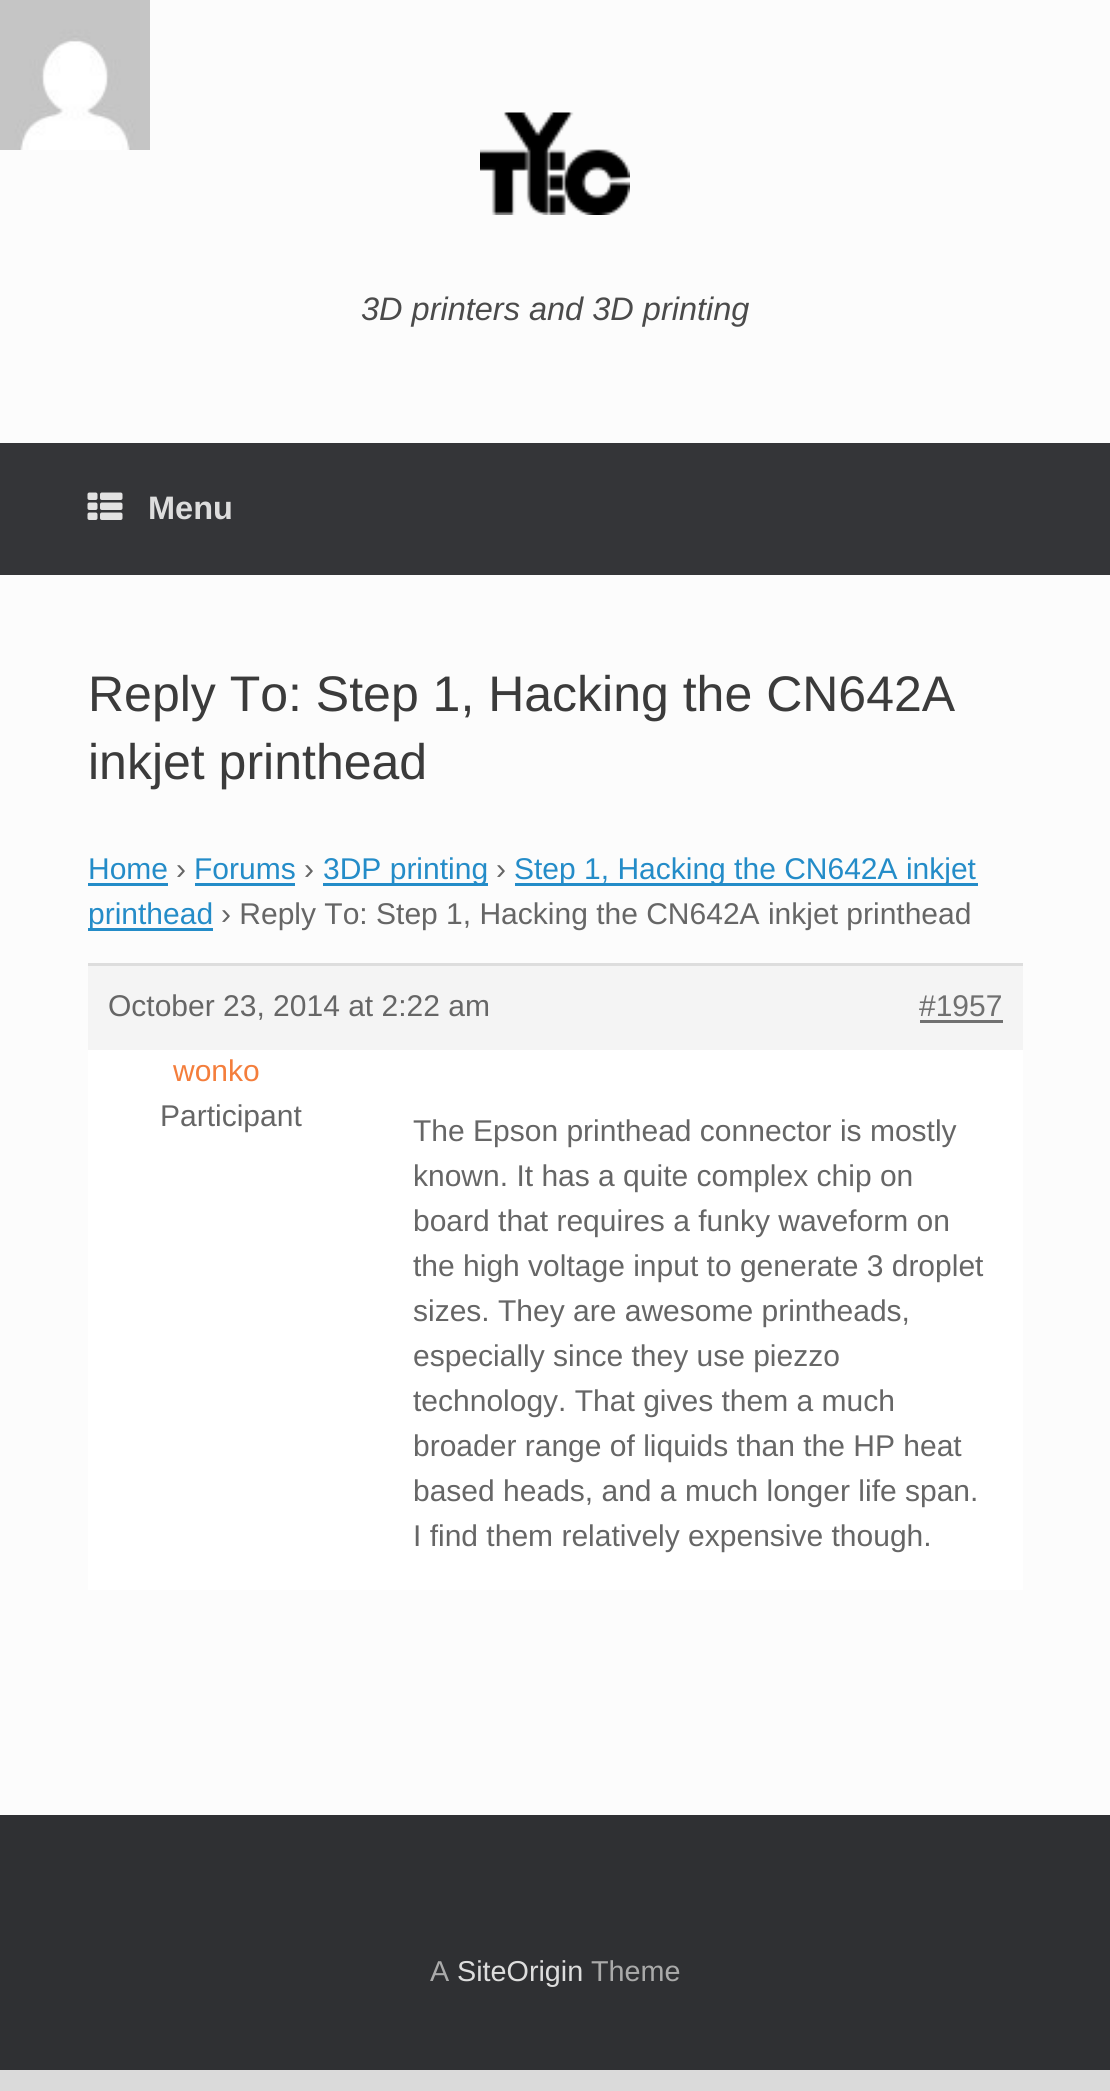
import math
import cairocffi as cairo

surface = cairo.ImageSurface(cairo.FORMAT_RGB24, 1110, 2091)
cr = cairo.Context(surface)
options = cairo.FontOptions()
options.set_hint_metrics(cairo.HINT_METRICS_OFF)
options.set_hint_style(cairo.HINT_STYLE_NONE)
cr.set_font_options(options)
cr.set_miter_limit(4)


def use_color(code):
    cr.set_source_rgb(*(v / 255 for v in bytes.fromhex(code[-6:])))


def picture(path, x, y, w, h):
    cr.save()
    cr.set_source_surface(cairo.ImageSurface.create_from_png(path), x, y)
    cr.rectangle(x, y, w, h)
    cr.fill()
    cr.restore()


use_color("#dadada")
cr.paint()
use_color("#fcfcfc")
cr.rectangle(0, 0, 1110, 443)
cr.fill()
picture("img1.png", 480, 112, 150, 103)
cr.select_font_face("Liberation Sans", cairo.FONT_SLANT_ITALIC)
cr.set_font_size(32.5)
use_color("#4b4b4b")
cr.move_to(361, 320)
cr.show_text("3D printers and 3D printing")
use_color("#343538")
cr.rectangle(0, 443, 1110, 132)
cr.fill()
picture("img2.png", 87, 492, 36, 28)
cr.select_font_face("Liberation Sans", cairo.FONT_SLANT_NORMAL, cairo.FONT_WEIGHT_BOLD)
use_color("#dddddd")
cr.move_to(148, 519)
cr.show_text("Menu")
use_color("#fcfcfc")
cr.rectangle(0, 575, 1110, 1240)
cr.fill()
cr.select_font_face("Liberation Sans")
cr.set_font_size(50)
use_color("#3b3b3b")
cr.move_to(88, 711)
cr.show_text("Reply To: Step 1, Hacking the CN642A")
cr.move_to(88, 779)
cr.show_text("inkjet printhead")
cr.set_font_size(30)
use_color("#248cc8")
cr.move_to(88, 879)
cr.show_text("Home")
cr.rectangle(88, 883, 80, 3)
cr.fill()
use_color("#666666")
cr.move_to(176, 879)
cr.show_text("›")
use_color("#248cc8")
cr.move_to(194, 879)
cr.show_text("Forums")
cr.rectangle(195, 883, 100, 3)
cr.fill()
use_color("#666666")
cr.move_to(304, 879)
cr.show_text("›")
use_color("#248cc8")
cr.rectangle(323, 883, 165, 3)
cr.fill()
cr.move_to(323, 879)
cr.show_text("3DP printing")
use_color("#666666")
cr.move_to(496, 879)
cr.show_text("›")
use_color("#248cc8")
cr.rectangle(515, 883, 463, 3)
cr.fill()
cr.move_to(514, 879)
cr.show_text("Step 1, Hacking the CN642A inkjet")
cr.rectangle(88, 928, 125, 3)
cr.fill()
cr.move_to(88, 924)
cr.show_text("printhead")
use_color("#666666")
cr.move_to(221, 924)
cr.show_text("› Reply To: Step 1, Hacking the CN642A inkjet printhead")
use_color("#f4f4f4")
cr.rectangle(88, 966, 935, 84)
cr.fill()
use_color("#dddddd")
cr.rectangle(88, 963, 935, 3)
cr.fill()
use_color("#666666")
cr.move_to(108, 1016)
cr.show_text("October 23, 2014 at 2:22 am")
use_color("#707070")
cr.move_to(919, 1016)
cr.show_text("#1957")
cr.rectangle(920, 1020, 83, 3)
cr.fill()
use_color("#ffffff")
cr.rectangle(88, 1050, 935, 540)
cr.fill()
picture("img3.png", 0, 0, 150, 150)
use_color("#f47e3c")
cr.move_to(173, 1081)
cr.show_text("wonko")
use_color("#666666")
cr.move_to(160, 1126)
cr.show_text("Participant")
cr.move_to(413, 1141)
cr.show_text("The Epson printhead connector is mostly")
cr.move_to(413, 1186)
cr.show_text("known. It has a quite complex chip on")
cr.move_to(413, 1231)
cr.show_text("board that requires a funky waveform on")
cr.move_to(413, 1276)
cr.show_text("the high voltage input to generate 3 droplet")
cr.move_to(413, 1321)
cr.show_text("sizes. They are awesome printheads,")
cr.move_to(413, 1366)
cr.show_text("especially since they use piezzo")
cr.move_to(413, 1411)
cr.show_text("technology. That gives them a much")
cr.move_to(413, 1456)
cr.show_text("broader range of liquids than the HP heat")
cr.move_to(413, 1501)
cr.show_text("based heads, and a much longer life span.")
cr.move_to(413, 1546)
cr.show_text("I find them relatively expensive though.")
use_color("#2f3033")
cr.rectangle(0, 1815, 1110, 255)
cr.fill()
cr.set_font_size(28.75)
use_color("#aaaaaa")
cr.move_to(430, 1981)
cr.show_text("A")
use_color("#dddddd")
cr.move_to(457, 1981)
cr.show_text("SiteOrigin")
use_color("#aaaaaa")
cr.move_to(591, 1981)
cr.show_text("Theme")
surface.write_to_png("result.png")
